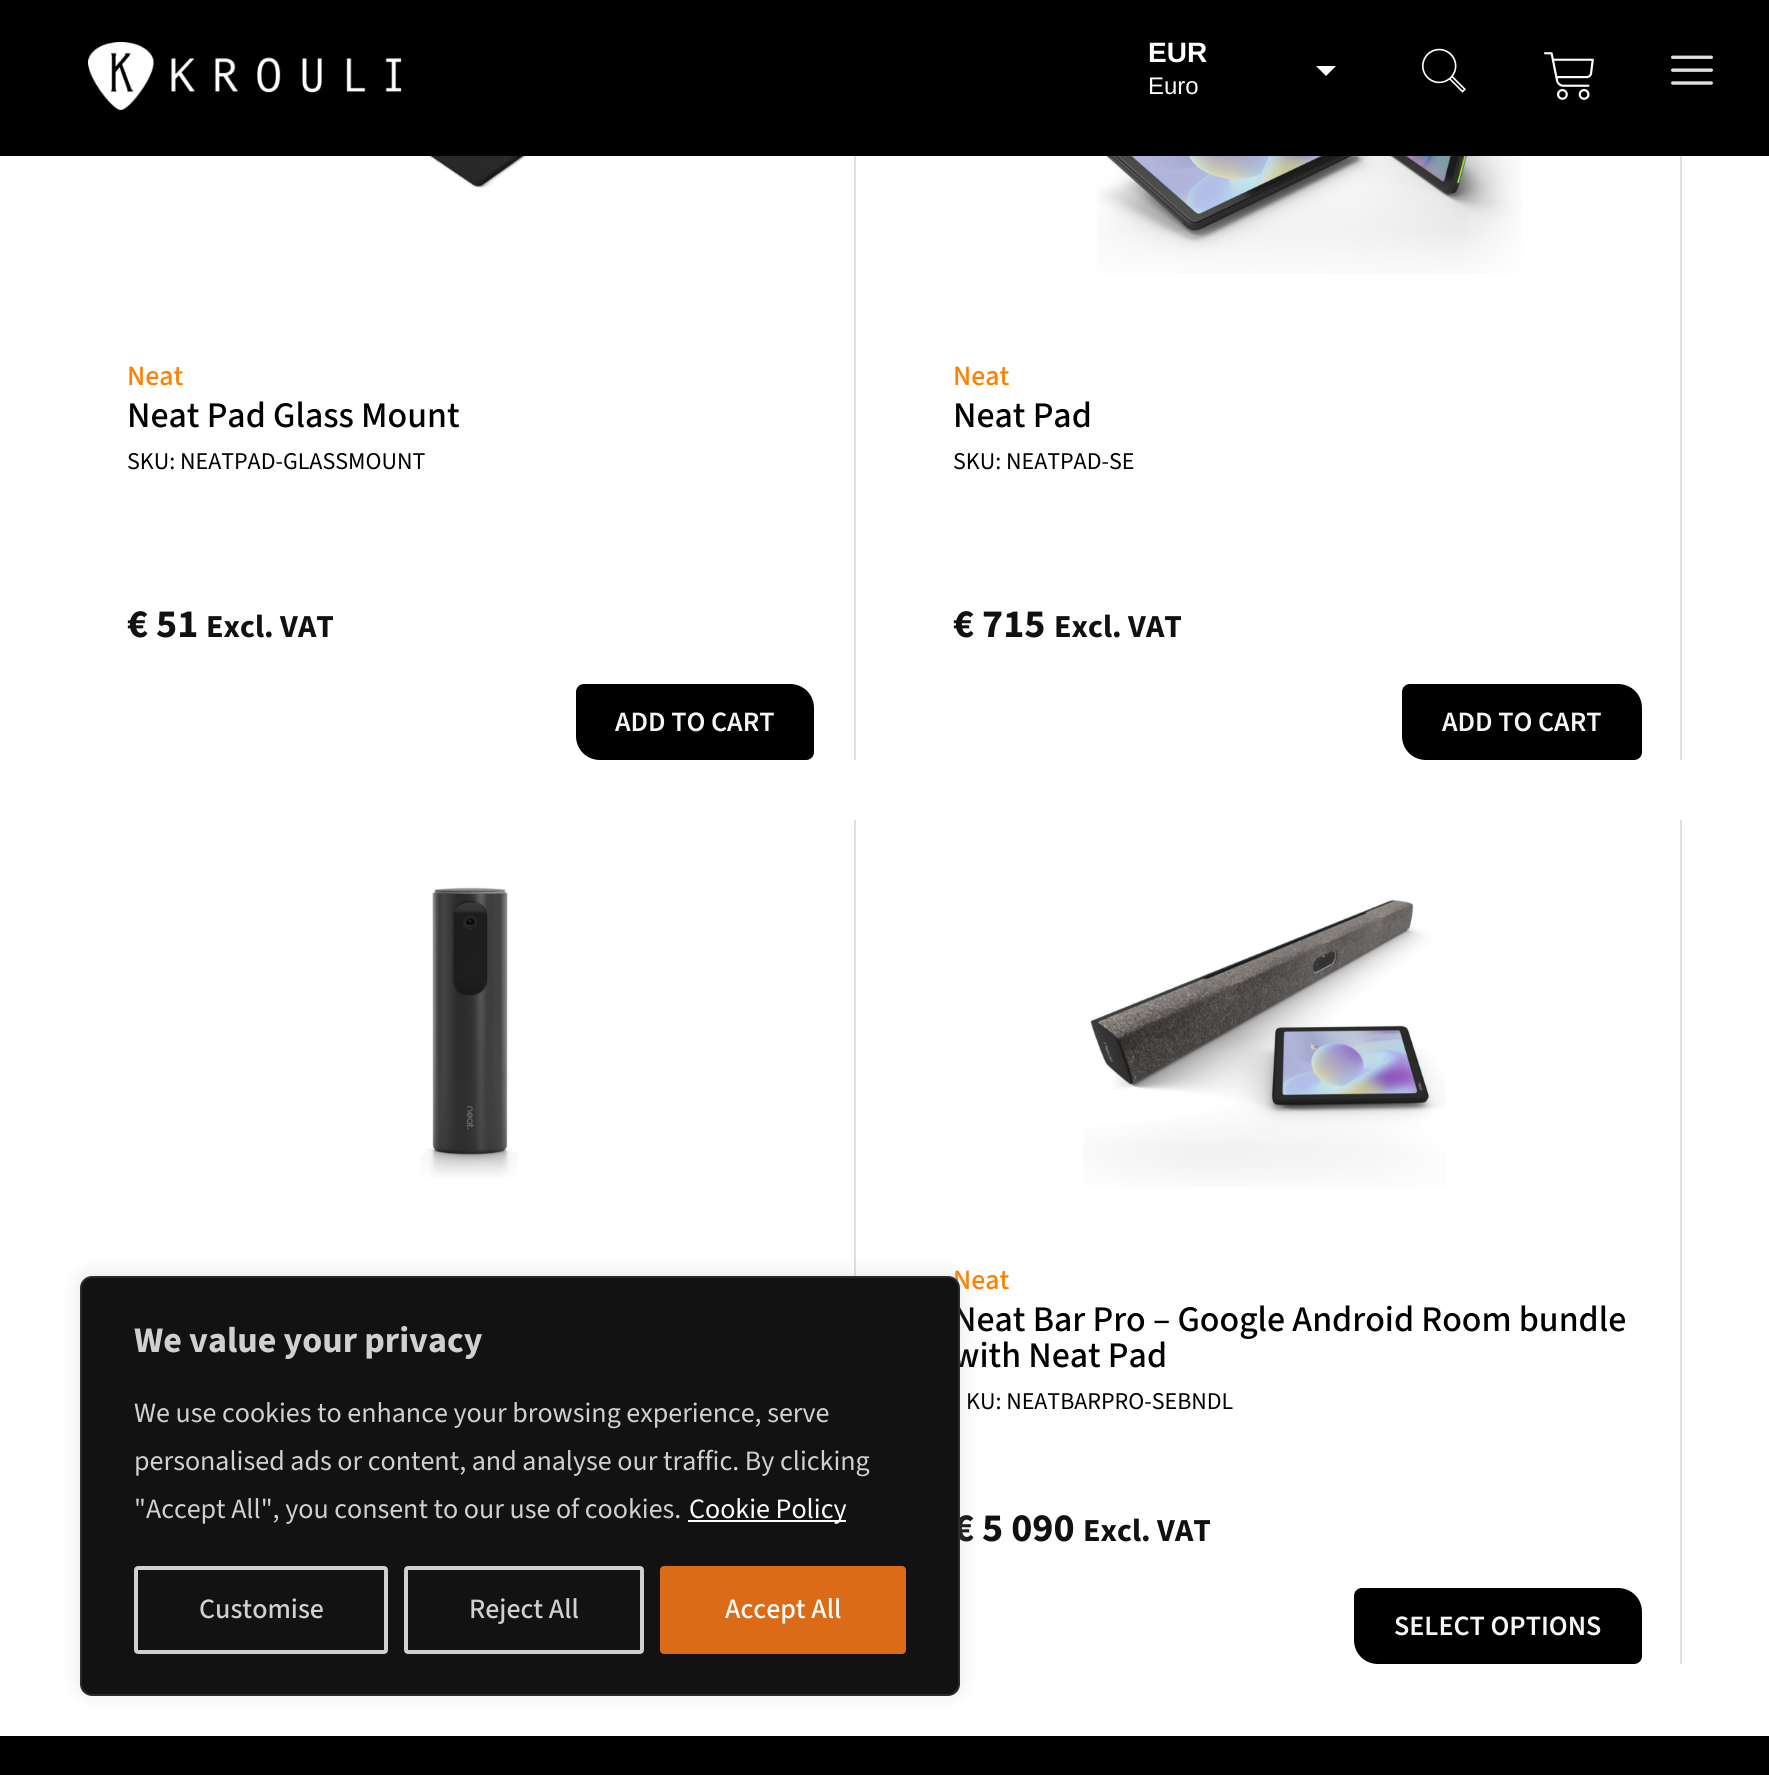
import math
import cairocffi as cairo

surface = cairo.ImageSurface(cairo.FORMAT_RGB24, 1769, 1775)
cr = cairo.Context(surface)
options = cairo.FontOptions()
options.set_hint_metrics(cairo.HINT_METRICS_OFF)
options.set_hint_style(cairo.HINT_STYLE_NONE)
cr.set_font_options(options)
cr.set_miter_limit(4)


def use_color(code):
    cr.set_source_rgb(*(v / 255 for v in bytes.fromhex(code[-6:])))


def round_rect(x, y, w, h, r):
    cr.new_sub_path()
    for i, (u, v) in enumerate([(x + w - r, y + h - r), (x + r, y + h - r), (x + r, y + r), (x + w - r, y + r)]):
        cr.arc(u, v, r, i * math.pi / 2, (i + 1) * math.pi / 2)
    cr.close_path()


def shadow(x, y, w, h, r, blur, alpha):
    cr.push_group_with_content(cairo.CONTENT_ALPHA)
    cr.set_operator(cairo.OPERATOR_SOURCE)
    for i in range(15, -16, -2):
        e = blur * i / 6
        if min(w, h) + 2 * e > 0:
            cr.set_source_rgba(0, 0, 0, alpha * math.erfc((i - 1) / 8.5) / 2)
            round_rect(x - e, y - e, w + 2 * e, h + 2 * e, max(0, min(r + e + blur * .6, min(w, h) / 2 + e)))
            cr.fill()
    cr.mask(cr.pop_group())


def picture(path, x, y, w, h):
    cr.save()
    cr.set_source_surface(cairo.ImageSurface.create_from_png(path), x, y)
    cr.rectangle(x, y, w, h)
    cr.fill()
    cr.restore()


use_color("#ffffff")
cr.paint()
use_color("#000000")
cr.rectangle(0, 0, 1769, 156)
cr.fill()
picture("img1.png", 88, 42, 314, 68)
cr.select_font_face("Liberation Sans", cairo.FONT_SLANT_NORMAL, cairo.FONT_WEIGHT_BOLD)
cr.set_font_size(28)
use_color("#ffffff")
cr.move_to(1148, 62)
cr.show_text("EUR")
cr.select_font_face("Liberation Sans")
cr.set_font_size(24)
cr.move_to(1148, 94)
cr.show_text("Euro")
cr.new_path()
cr.move_to(1316, 66)
cr.line_to(1336, 66)
cr.line_to(1326, 76)
cr.close_path()
cr.fill()
picture("img2.png", 1422, 48, 44, 45)
picture("img3.png", 1544, 52, 50, 48)
picture("img4.png", 1671, 55, 42, 30)
use_color("#e0e0e0")
cr.rectangle(854, 156, 2, 604)
cr.fill()
picture("img5.png", 346, 156, 259, 32)
cr.select_font_face("Source Sans 3 Medium")
cr.set_font_size(28)
use_color("#ff7f00")
cr.move_to(127, 385)
cr.show_text("Neat")
cr.set_font_size(36)
use_color("#000000")
cr.move_to(127, 427)
cr.show_text("Neat Pad Glass Mount")
cr.select_font_face("Source Sans 3")
cr.set_font_size(24)
cr.move_to(127, 469)
cr.show_text("SKU: NEATPAD-GLASSMOUNT")
cr.select_font_face("Source Sans 3", cairo.FONT_SLANT_NORMAL, cairo.FONT_WEIGHT_BOLD)
cr.set_font_size(40)
use_color("#101111")
cr.move_to(127, 637)
cr.show_text("€ 51")
cr.set_font_size(32)
cr.move_to(206, 637)
cr.show_text("Excl. VAT")
use_color("#000000")
cr.new_path()
cr.move_to(584, 684)
cr.line_to(790, 684)
cr.curve_to(803.5, 684, 814, 694.5, 814, 708)
cr.line_to(814, 752)
cr.curve_to(814, 756.5, 810.5, 760, 806, 760)
cr.line_to(600, 760)
cr.curve_to(586.5, 760, 576, 749.5, 576, 736)
cr.line_to(576, 692)
cr.curve_to(576, 687.5, 579.5, 684, 584, 684)
cr.close_path()
cr.fill()
cr.select_font_face("Source Sans 3 SemiBold")
cr.set_font_size(28)
use_color("#f6f6f6")
cr.move_to(615, 731)
cr.show_text("ADD TO CART")
use_color("#e0e0e0")
cr.rectangle(1680, 156, 2, 604)
cr.fill()
picture("img6.png", 1097, 156, 425, 118)
cr.select_font_face("Source Sans 3 Medium")
use_color("#ff7f00")
cr.move_to(953, 385)
cr.show_text("Neat")
cr.set_font_size(36)
use_color("#000000")
cr.move_to(953, 427)
cr.show_text("Neat Pad")
cr.select_font_face("Source Sans 3")
cr.set_font_size(24)
cr.move_to(953, 469)
cr.show_text("SKU: NEATPAD-SE")
cr.select_font_face("Source Sans 3", cairo.FONT_SLANT_NORMAL, cairo.FONT_WEIGHT_BOLD)
cr.set_font_size(40)
use_color("#101111")
cr.move_to(953, 637)
cr.show_text("€ 715")
cr.set_font_size(32)
cr.move_to(1054, 637)
cr.show_text("Excl. VAT")
use_color("#000000")
cr.new_path()
cr.move_to(1410, 684)
cr.line_to(1618, 684)
cr.curve_to(1631.5, 684, 1642, 694.5, 1642, 708)
cr.line_to(1642, 752)
cr.curve_to(1642, 756.5, 1638.5, 760, 1634, 760)
cr.line_to(1426, 760)
cr.curve_to(1412.5, 760, 1402, 749.5, 1402, 736)
cr.line_to(1402, 692)
cr.curve_to(1402, 687.5, 1405.5, 684, 1410, 684)
cr.close_path()
cr.fill()
cr.select_font_face("Source Sans 3 SemiBold")
cr.set_font_size(28)
use_color("#f6f6f6")
cr.move_to(1442, 731)
cr.show_text("ADD TO CART")
use_color("#e0e0e0")
cr.rectangle(854, 820, 2, 456)
cr.fill()
picture("img7.png", 420, 887, 98, 291)
cr.rectangle(1680, 820, 2, 844)
cr.fill()
picture("img8.png", 1083, 900, 363, 287)
cr.select_font_face("Source Sans 3 Medium")
use_color("#ff7f00")
cr.move_to(953, 1289)
cr.show_text("Neat")
cr.set_font_size(36)
use_color("#000000")
cr.move_to(953, 1331)
cr.show_text("Neat Bar Pro – Google Android Room bundle")
cr.move_to(953, 1367)
cr.show_text("with Neat Pad")
cr.select_font_face("Source Sans 3")
cr.set_font_size(24)
cr.move_to(966, 1409)
cr.show_text("KU: NEATBARPRO-SEBNDL")
cr.select_font_face("Source Sans 3", cairo.FONT_SLANT_NORMAL, cairo.FONT_WEIGHT_BOLD)
cr.set_font_size(40)
use_color("#101111")
cr.move_to(953, 1541)
cr.show_text("€ 5 090")
cr.set_font_size(32)
cr.move_to(1083, 1541)
cr.show_text("Excl. VAT")
use_color("#000000")
cr.new_path()
cr.move_to(1362, 1588)
cr.line_to(1618, 1588)
cr.curve_to(1631.5, 1588, 1642, 1598.5, 1642, 1612)
cr.line_to(1642, 1656)
cr.curve_to(1642, 1660.5, 1638.5, 1664, 1634, 1664)
cr.line_to(1378, 1664)
cr.curve_to(1364.5, 1664, 1354, 1653.5, 1354, 1640)
cr.line_to(1354, 1596)
cr.curve_to(1354, 1591.5, 1357.5, 1588, 1362, 1588)
cr.close_path()
cr.fill()
cr.select_font_face("Source Sans 3 SemiBold")
cr.set_font_size(28)
use_color("#f6f6f6")
cr.move_to(1394, 1635)
cr.show_text("SELECT OPTIONS")
use_color("#acabab")
shadow(80, 1274, 880, 420, 12, 10, 0.3)
use_color("#121212")
round_rect(81, 1277, 878, 418, 11)
cr.fill_preserve()
use_color("#2a2a2a")
cr.stroke()
cr.select_font_face("Source Sans 3", cairo.FONT_SLANT_NORMAL, cairo.FONT_WEIGHT_BOLD)
cr.set_font_size(36)
use_color("#d0d0d0")
cr.move_to(134, 1352)
cr.show_text("We value your privacy")
cr.select_font_face("Source Sans 3")
cr.set_font_size(28)
cr.move_to(134, 1422)
cr.show_text("We use cookies to enhance your browsing experience, serve")
cr.move_to(134, 1470)
cr.show_text("personalised ads or content, and analyse our traffic. By clicking")
cr.move_to(134, 1518)
cr.show_text("\"Accept All\", you consent to our use of cookies.")
use_color("#ffffff")
cr.rectangle(688, 1520, 158, 2)
cr.fill()
cr.move_to(689, 1518)
cr.show_text("Cookie Policy")
round_rect(136, 1568, 250, 84, 2)
use_color("#d0d0d0")
cr.set_line_width(4)
cr.stroke()
cr.select_font_face("Source Sans 3 Medium")
cr.move_to(199, 1618)
cr.show_text("Customise")
round_rect(406, 1568, 236, 84, 2)
cr.stroke()
cr.move_to(469, 1618)
cr.show_text("Reject All")
use_color("#dc6b18")
round_rect(662, 1568, 242, 84, 2)
cr.fill_preserve()
cr.stroke()
use_color("#ffffff")
cr.move_to(725, 1618)
cr.show_text("Accept All")
use_color("#000000")
cr.rectangle(0, 1736, 1769, 39)
cr.fill()
surface.write_to_png("result.png")
